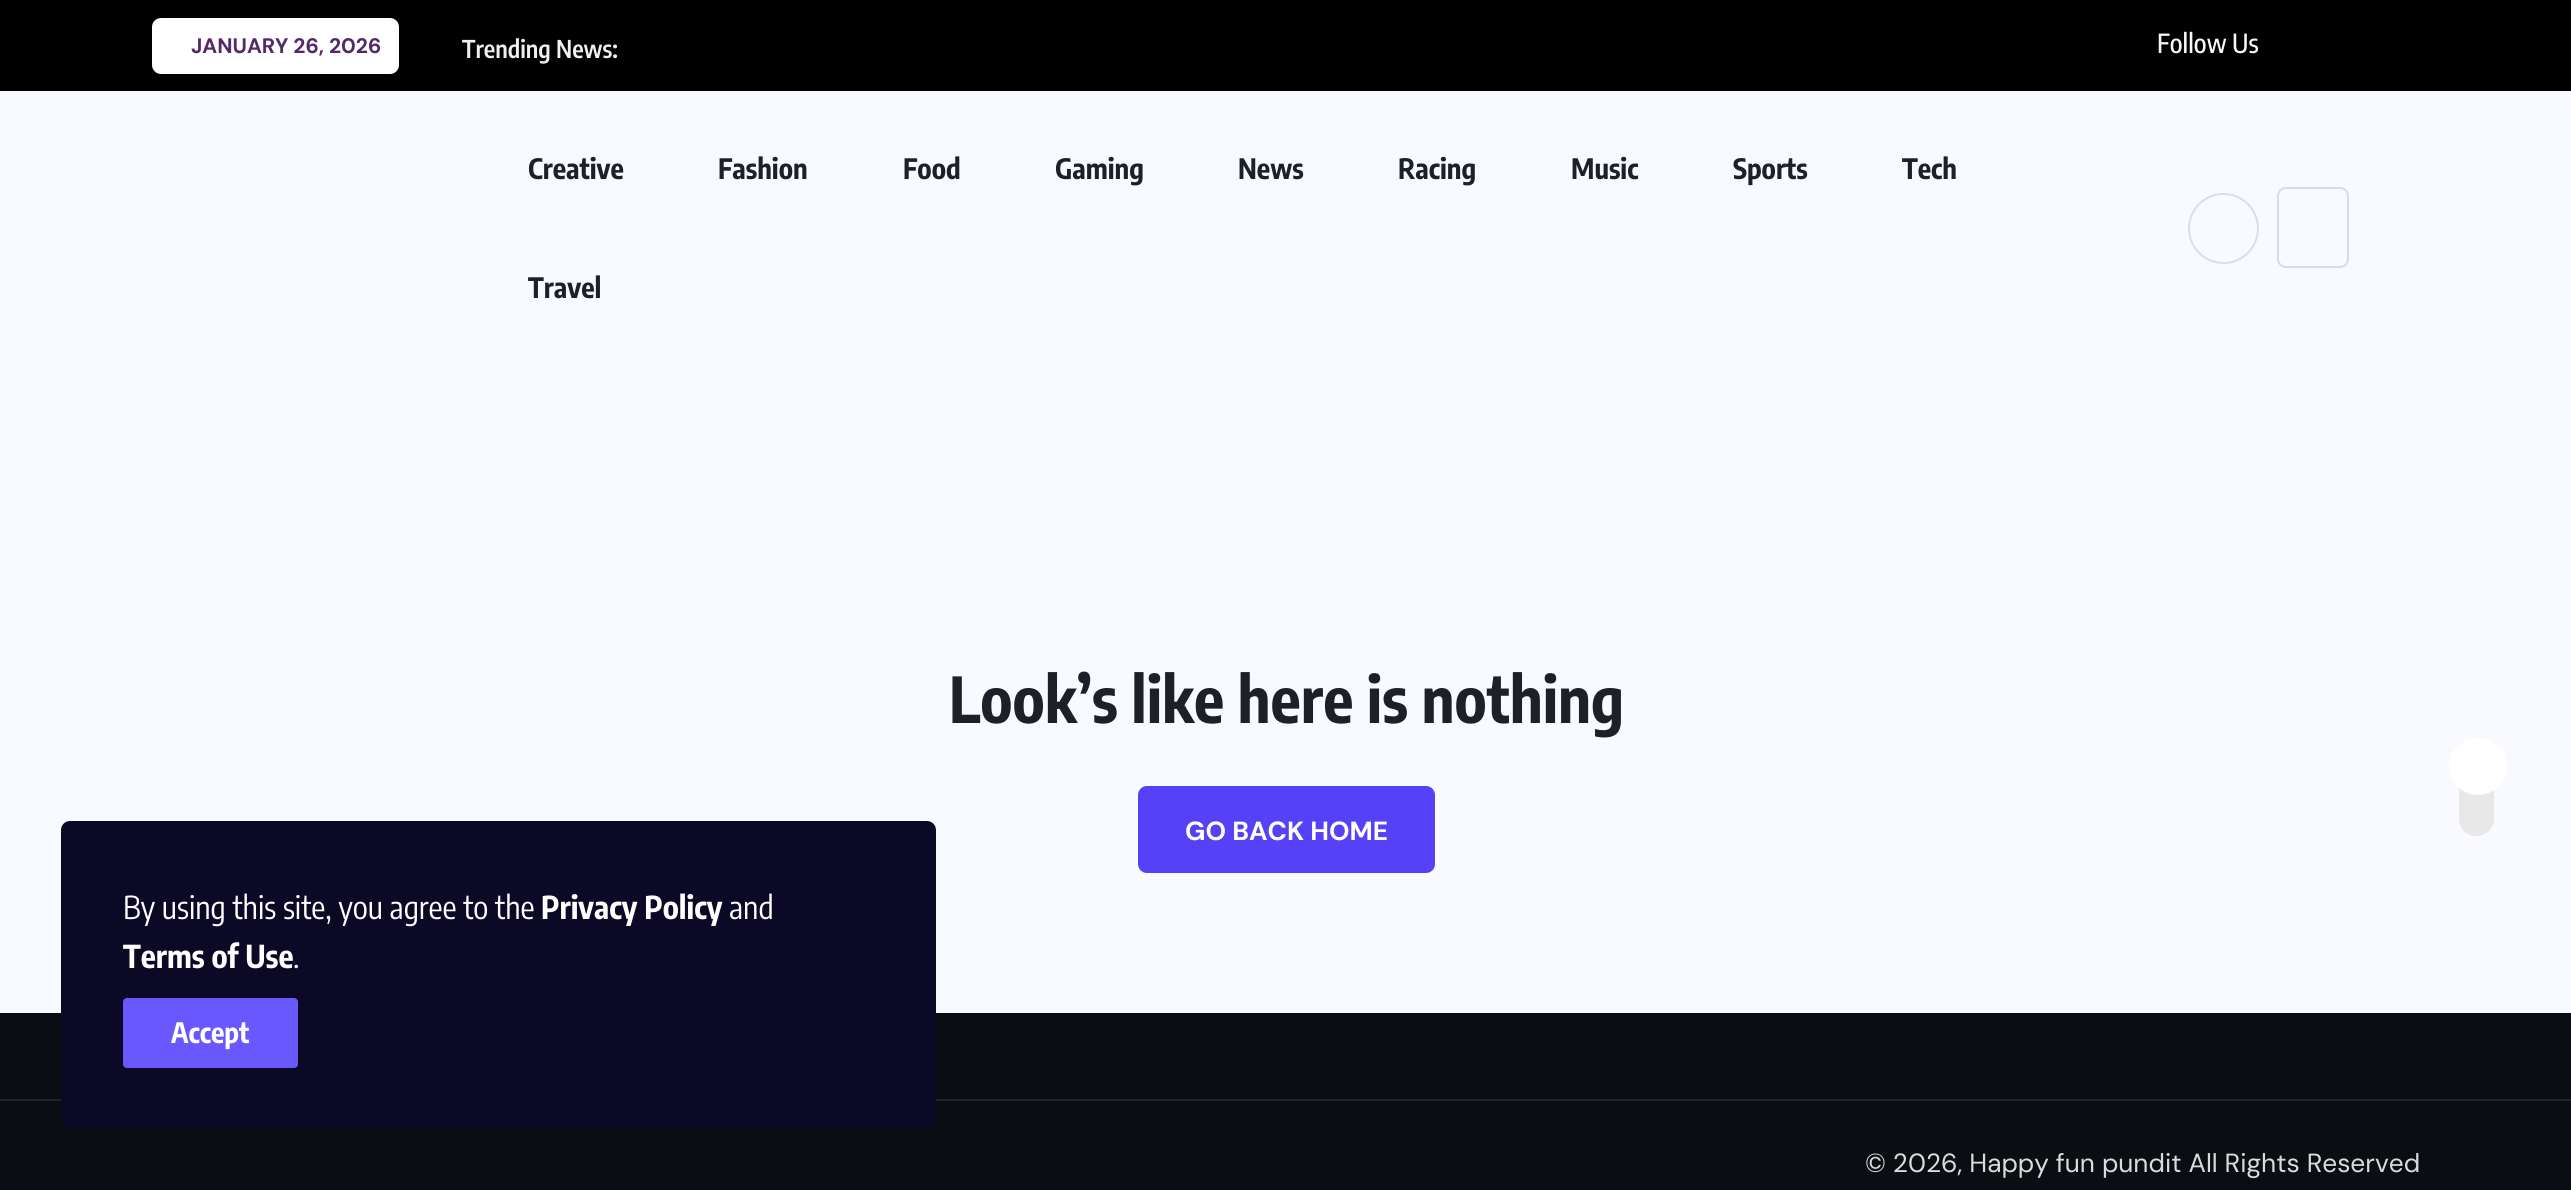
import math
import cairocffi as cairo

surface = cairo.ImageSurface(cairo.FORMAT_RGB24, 2571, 1190)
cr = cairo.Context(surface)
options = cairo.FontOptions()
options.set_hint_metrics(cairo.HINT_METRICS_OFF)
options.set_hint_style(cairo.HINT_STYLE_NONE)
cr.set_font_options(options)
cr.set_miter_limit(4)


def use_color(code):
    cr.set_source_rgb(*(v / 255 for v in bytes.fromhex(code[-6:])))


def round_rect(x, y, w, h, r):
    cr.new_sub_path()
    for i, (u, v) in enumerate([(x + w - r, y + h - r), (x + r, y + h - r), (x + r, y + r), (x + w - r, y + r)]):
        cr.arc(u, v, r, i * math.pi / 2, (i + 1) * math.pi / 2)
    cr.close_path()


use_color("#0a0d12")
cr.paint()
use_color("#f9faff")
cr.rectangle(0, 91, 2571, 922)
cr.fill()
use_color("#000000")
cr.rectangle(0, 0, 2571, 91)
cr.fill()
use_color("#ffffff")
round_rect(152, 18, 247, 56, 9)
cr.fill()
cr.select_font_face("DM Sans", cairo.FONT_SLANT_NORMAL, cairo.FONT_WEIGHT_BOLD)
cr.set_font_size(21)
use_color("#53296b")
cr.move_to(191, 53)
cr.show_text("JANUARY 26, 2026")
cr.select_font_face("Encode Sans Condensed SemiBold")
cr.set_font_size(24.5)
use_color("#f0f0f0")
cr.move_to(462, 58)
cr.show_text("Trending News:")
cr.select_font_face("Encode Sans Condensed Medium")
cr.set_font_size(26.25)
use_color("#f8f8f8")
cr.move_to(2157, 53)
cr.show_text("Follow Us")
cr.select_font_face("Encode Sans Condensed", cairo.FONT_SLANT_NORMAL, cairo.FONT_WEIGHT_BOLD)
cr.set_font_size(28)
use_color("#1d2027")
cr.move_to(528, 179)
cr.show_text("Creative")
cr.move_to(718, 179)
cr.show_text("Fashion")
cr.move_to(903, 179)
cr.show_text("Food")
cr.move_to(1055, 179)
cr.show_text("Gaming")
cr.move_to(1238, 179)
cr.show_text("News")
cr.move_to(1398, 179)
cr.show_text("Racing")
cr.move_to(1571, 179)
cr.show_text("Music")
cr.move_to(1733, 179)
cr.show_text("Sports")
cr.move_to(1902, 179)
cr.show_text("Tech")
cr.move_to(528, 298)
cr.show_text("Travel")
cr.new_path()
cr.arc(2223.5, 228.5, 34.5, 0, 2 * math.pi)
use_color("#dddedf")
cr.stroke()
round_rect(2278, 188, 70, 79, 8)
use_color("#dbdcdd")
cr.stroke()
cr.set_font_size(63)
use_color("#1d2027")
cr.move_to(949, 723)
cr.show_text("Look’s like here is nothing")
use_color("#5541f8")
round_rect(1139, 787, 295, 85, 8)
cr.fill_preserve()
cr.stroke()
cr.select_font_face("DM Sans", cairo.FONT_SLANT_NORMAL, cairo.FONT_WEIGHT_BOLD)
cr.set_font_size(26.25)
use_color("#ffffff")
cr.move_to(1185, 840)
cr.show_text("GO BACK HOME")
use_color("#e8e8e8")
cr.new_path()
cr.move_to(2494, 758)
cr.line_to(2494, 819)
cr.curve_to(2494, 829, 2486, 836, 2476, 836)
cr.curve_to(2467, 836, 2459, 829, 2459, 819)
cr.line_to(2459, 758)
cr.curve_to(2459, 748, 2467, 740, 2476, 740)
cr.curve_to(2486, 740, 2494, 748, 2494, 758)
cr.close_path()
cr.fill()
use_color("#ffffff")
cr.new_path()
cr.move_to(2507, 766)
cr.curve_to(2507, 782, 2494, 795, 2478, 795)
cr.curve_to(2462, 795, 2449, 782, 2449, 766)
cr.curve_to(2449, 751, 2462, 738, 2478, 738)
cr.curve_to(2494, 738, 2507, 751, 2507, 766)
cr.close_path()
cr.fill()
use_color("#222428")
cr.rectangle(0, 1099, 2571, 2)
cr.fill()
use_color("#0c0927")
round_rect(61, 821, 875, 308, 9)
cr.fill()
cr.select_font_face("Encode Sans Condensed")
cr.set_font_size(31.5)
use_color("#ffffff")
cr.move_to(123, 919)
cr.show_text("By using this site, you agree to the")
cr.select_font_face("Encode Sans Condensed", cairo.FONT_SLANT_NORMAL, cairo.FONT_WEIGHT_BOLD)
cr.move_to(541, 919)
cr.show_text("Privacy Policy")
cr.select_font_face("Encode Sans Condensed")
cr.move_to(729, 919)
cr.show_text("and")
cr.select_font_face("Encode Sans Condensed", cairo.FONT_SLANT_NORMAL, cairo.FONT_WEIGHT_BOLD)
cr.move_to(123, 968)
cr.show_text("Terms of Use")
cr.select_font_face("Encode Sans Condensed")
cr.move_to(293, 968)
cr.show_text(".")
use_color("#6a58ff")
round_rect(123, 998, 175, 70, 4)
cr.fill()
cr.select_font_face("Encode Sans Condensed", cairo.FONT_SLANT_NORMAL, cairo.FONT_WEIGHT_BOLD)
cr.set_font_size(28)
use_color("#ffffff")
cr.move_to(171, 1043)
cr.show_text("Accept")
cr.select_font_face("DM Sans")
cr.set_font_size(26.25)
use_color("#dbdbdb")
cr.move_to(1865, 1172)
cr.show_text("© 2026, Happy fun pundit All Rights Reserved")
surface.write_to_png("result.png")
